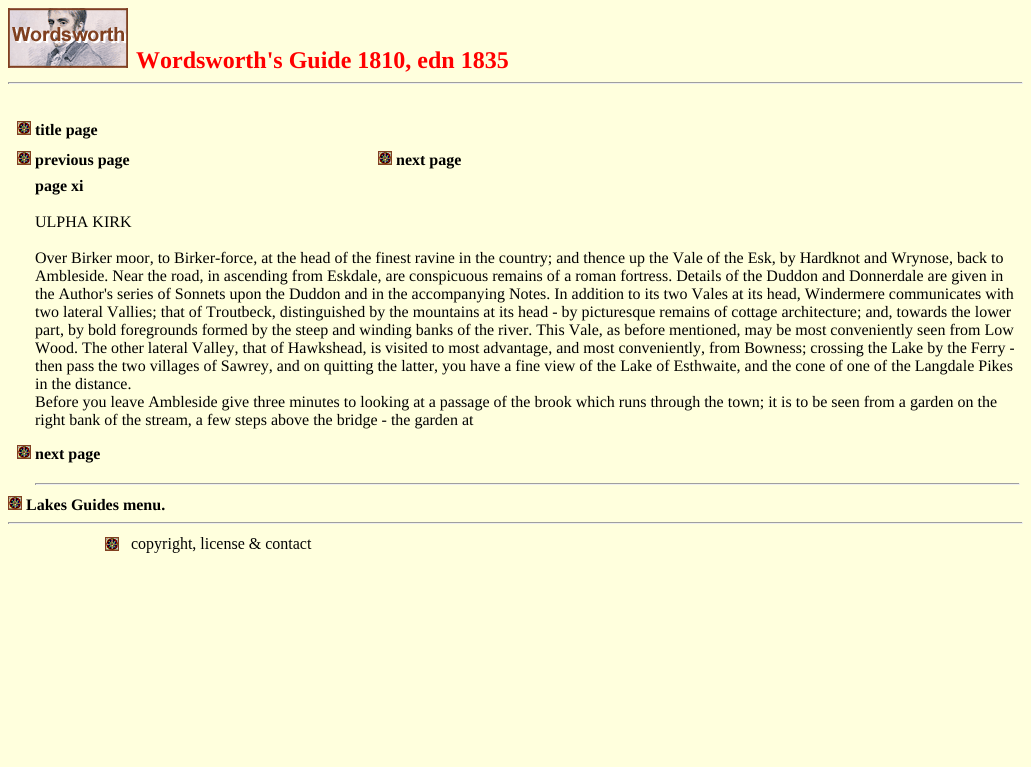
import math
import cairocffi as cairo

surface = cairo.ImageSurface(cairo.FORMAT_RGB24, 1031, 767)
cr = cairo.Context(surface)
options = cairo.FontOptions()
options.set_hint_metrics(cairo.HINT_METRICS_OFF)
options.set_hint_style(cairo.HINT_STYLE_NONE)
cr.set_font_options(options)
cr.set_miter_limit(4)


def use_color(code):
    cr.set_source_rgb(*(v / 255 for v in bytes.fromhex(code[-6:])))


def picture(path, x, y, w, h):
    cr.save()
    cr.set_source_surface(cairo.ImageSurface.create_from_png(path), x, y)
    cr.rectangle(x, y, w, h)
    cr.fill()
    cr.restore()


use_color("#ffffdd")
cr.paint()
picture("img1.png", 8, 8, 120, 60)
cr.select_font_face("Liberation Serif", cairo.FONT_SLANT_NORMAL, cairo.FONT_WEIGHT_BOLD)
cr.set_font_size(24)
use_color("#ff0000")
cr.move_to(136, 68)
cr.show_text("Wordsworth's Guide 1810, edn 1835")
use_color("#9f9f9f")
cr.rectangle(8, 82, 1015, 1)
cr.fill()
use_color("#eeeeee")
cr.rectangle(1022, 82, 1, 2)
cr.fill()
cr.rectangle(8, 83, 1015, 1)
cr.fill()
use_color("#9f9f9f")
cr.rectangle(8, 82, 1, 2)
cr.fill()
picture("img2.png", 17, 121, 14, 14)
cr.set_font_size(16)
use_color("#000000")
cr.move_to(35, 135)
cr.show_text("title page")
picture("img2.png", 17, 151, 14, 14)
cr.move_to(35, 165)
cr.show_text("previous page")
picture("img2.png", 378, 151, 14, 14)
cr.move_to(396, 165)
cr.show_text("next page")
cr.move_to(35, 191)
cr.show_text("page xi")
cr.select_font_face("Liberation Serif")
cr.move_to(35, 227)
cr.show_text("ULPHA KIRK")
cr.move_to(35, 263)
cr.show_text("Over Birker moor, to Birker-force, at the head of the finest ravine in the country; and thence up the Vale of the Esk, by Hardknot and Wrynose, back to")
cr.move_to(35, 281)
cr.show_text("Ambleside. Near the road, in ascending from Eskdale, are conspicuous remains of a roman fortress. Details of the Duddon and Donnerdale are given in")
cr.move_to(35, 299)
cr.show_text("the Author's series of Sonnets upon the Duddon and in the accompanying Notes. In addition to its two Vales at its head, Windermere communicates with")
cr.move_to(35, 317)
cr.show_text("two lateral Vallies; that of Troutbeck, distinguished by the mountains at its head - by picturesque remains of cottage architecture; and, towards the lower")
cr.move_to(35, 335)
cr.show_text("part, by bold foregrounds formed by the steep and winding banks of the river. This Vale, as before mentioned, may be most conveniently seen from Low")
cr.move_to(35, 353)
cr.show_text("Wood. The other lateral Valley, that of Hawkshead, is visited to most advantage, and most conveniently, from Bowness; crossing the Lake by the Ferry -")
cr.move_to(35, 371)
cr.show_text("then pass the two villages of Sawrey, and on quitting the latter, you have a fine view of the Lake of Esthwaite, and the cone of one of the Langdale Pikes")
cr.move_to(35, 389)
cr.show_text("in the distance.")
cr.move_to(35, 407)
cr.show_text("Before you leave Ambleside give three minutes to looking at a passage of the brook which runs through the town; it is to be seen from a garden on the")
cr.move_to(35, 425)
cr.show_text("right bank of the stream, a few steps above the bridge - the garden at")
picture("img2.png", 17, 445, 14, 14)
cr.select_font_face("Liberation Serif", cairo.FONT_SLANT_NORMAL, cairo.FONT_WEIGHT_BOLD)
cr.move_to(35, 459)
cr.show_text("next page")
use_color("#9f9f9f")
cr.rectangle(35, 483, 985, 1)
cr.fill()
use_color("#eeeeee")
cr.rectangle(1019, 483, 1, 2)
cr.fill()
cr.rectangle(35, 484, 985, 1)
cr.fill()
use_color("#9f9f9f")
cr.rectangle(35, 483, 1, 2)
cr.fill()
picture("img2.png", 8, 496, 14, 14)
use_color("#000000")
cr.move_to(26, 510)
cr.show_text("Lakes Guides menu.")
use_color("#9f9f9f")
cr.rectangle(8, 522, 1015, 1)
cr.fill()
use_color("#eeeeee")
cr.rectangle(1022, 522, 1, 2)
cr.fill()
cr.rectangle(8, 523, 1015, 1)
cr.fill()
use_color("#9f9f9f")
cr.rectangle(8, 522, 1, 2)
cr.fill()
picture("img3.png", 105, 537, 207, 16)
surface.write_to_png("result.png")
